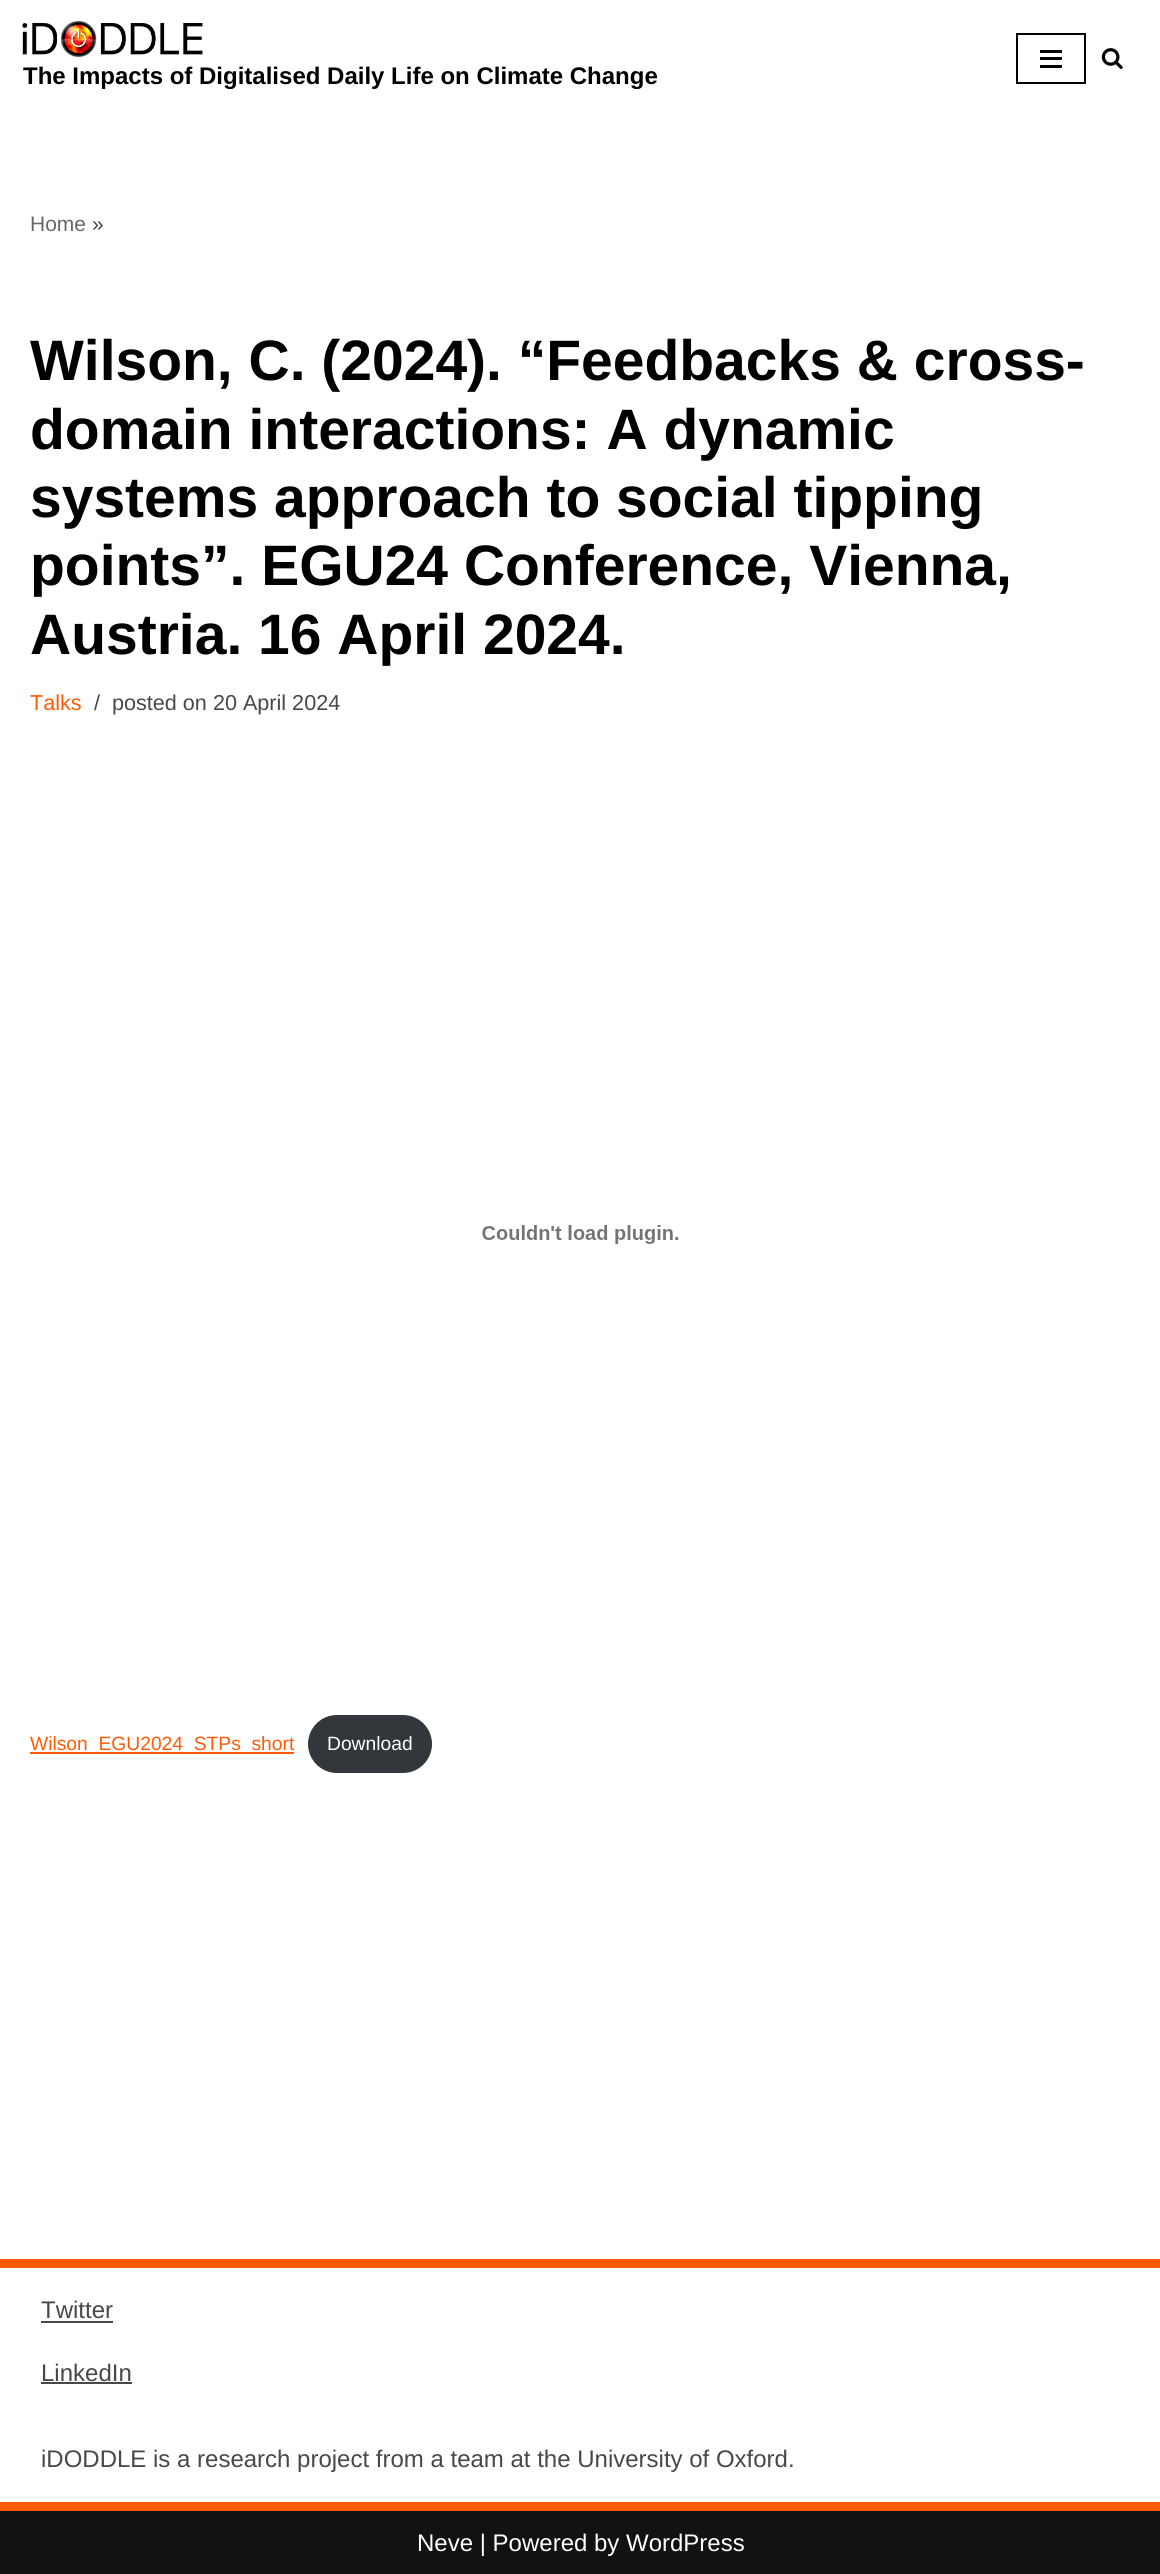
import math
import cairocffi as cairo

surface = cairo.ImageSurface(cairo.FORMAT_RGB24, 1160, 2574)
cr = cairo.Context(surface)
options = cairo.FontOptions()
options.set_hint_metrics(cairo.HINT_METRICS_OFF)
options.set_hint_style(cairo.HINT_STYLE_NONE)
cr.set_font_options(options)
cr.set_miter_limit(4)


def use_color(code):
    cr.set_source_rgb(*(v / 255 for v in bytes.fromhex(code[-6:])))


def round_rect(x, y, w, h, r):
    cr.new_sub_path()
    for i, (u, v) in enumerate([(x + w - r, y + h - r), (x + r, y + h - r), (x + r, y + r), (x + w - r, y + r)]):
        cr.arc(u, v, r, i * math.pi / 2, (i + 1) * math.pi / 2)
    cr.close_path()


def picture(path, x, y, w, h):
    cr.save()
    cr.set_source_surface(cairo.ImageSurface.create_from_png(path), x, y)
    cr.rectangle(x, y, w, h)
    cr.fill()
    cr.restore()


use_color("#ffffff")
cr.paint()
picture("img1.png", 22, 21, 181, 36)
cr.select_font_face("Liberation Sans", cairo.FONT_SLANT_NORMAL, cairo.FONT_WEIGHT_BOLD)
cr.set_font_size(24)
use_color("#000000")
cr.move_to(23, 84)
cr.show_text("The Impacts of Digitalised Daily Life on Climate Change")
cr.rectangle(1017, 34, 68, 49)
cr.stroke()
cr.rectangle(1040, 50, 22, 3)
cr.fill()
cr.rectangle(1040, 57, 22, 3)
cr.fill()
cr.rectangle(1040, 65, 22, 3)
cr.fill()
picture("img2.png", 1101, 48, 22, 21)
cr.select_font_face("Liberation Sans")
cr.set_font_size(21)
use_color("#676767")
cr.move_to(30, 231)
cr.show_text("Home")
use_color("#484848")
cr.move_to(92, 231)
cr.show_text("»")
cr.select_font_face("Liberation Sans", cairo.FONT_SLANT_NORMAL, cairo.FONT_WEIGHT_BOLD)
cr.set_font_size(57)
use_color("#000000")
cr.move_to(30, 380)
cr.show_text("Wilson, C. (2024). “Feedbacks & cross-")
cr.move_to(30, 449)
cr.show_text("domain interactions: A dynamic")
cr.move_to(30, 517)
cr.show_text("systems approach to social tipping")
cr.move_to(30, 585)
cr.show_text("points”. EGU24 Conference, Vienna,")
cr.move_to(30, 654)
cr.show_text("Austria. 16 April 2024.")
cr.select_font_face("Liberation Sans")
cr.set_font_size(21.6)
use_color("#ff5a06")
cr.move_to(30, 710)
cr.show_text("Talks")
use_color("#484848")
cr.move_to(94, 710)
cr.show_text("/")
cr.move_to(112, 710)
cr.show_text("posted on 20 April 2024")
picture("img3.png", 482, 1225, 197, 19)
use_color("#ff5a06")
cr.rectangle(30, 1752, 264, 2)
cr.fill()
cr.set_font_size(19.25)
cr.move_to(30, 1750)
cr.show_text("Wilson_EGU2024_STPs_short")
use_color("#32373c")
round_rect(308, 1715, 124, 58, 29)
cr.fill()
use_color("#ffffff")
cr.move_to(327, 1750)
cr.show_text("Download")
use_color("#ff5a06")
cr.rectangle(0, 2259, 1160, 9)
cr.fill()
cr.set_font_size(24)
use_color("#484848")
cr.move_to(41, 2318)
cr.show_text("Twitter")
cr.rectangle(41, 2321, 72, 2)
cr.fill()
cr.move_to(41, 2381)
cr.show_text("LinkedIn")
cr.rectangle(41, 2382, 91, 2)
cr.fill()
cr.move_to(41, 2467)
cr.show_text("iDODDLE is a research project from a team at the University of Oxford.")
use_color("#121212")
cr.rectangle(0, 2511, 1160, 63)
cr.fill()
use_color("#ff5a06")
cr.rectangle(0, 2502, 1160, 9)
cr.fill()
use_color("#ffffff")
cr.move_to(417, 2551)
cr.show_text("Neve | Powered by WordPress")
surface.write_to_png("result.png")
